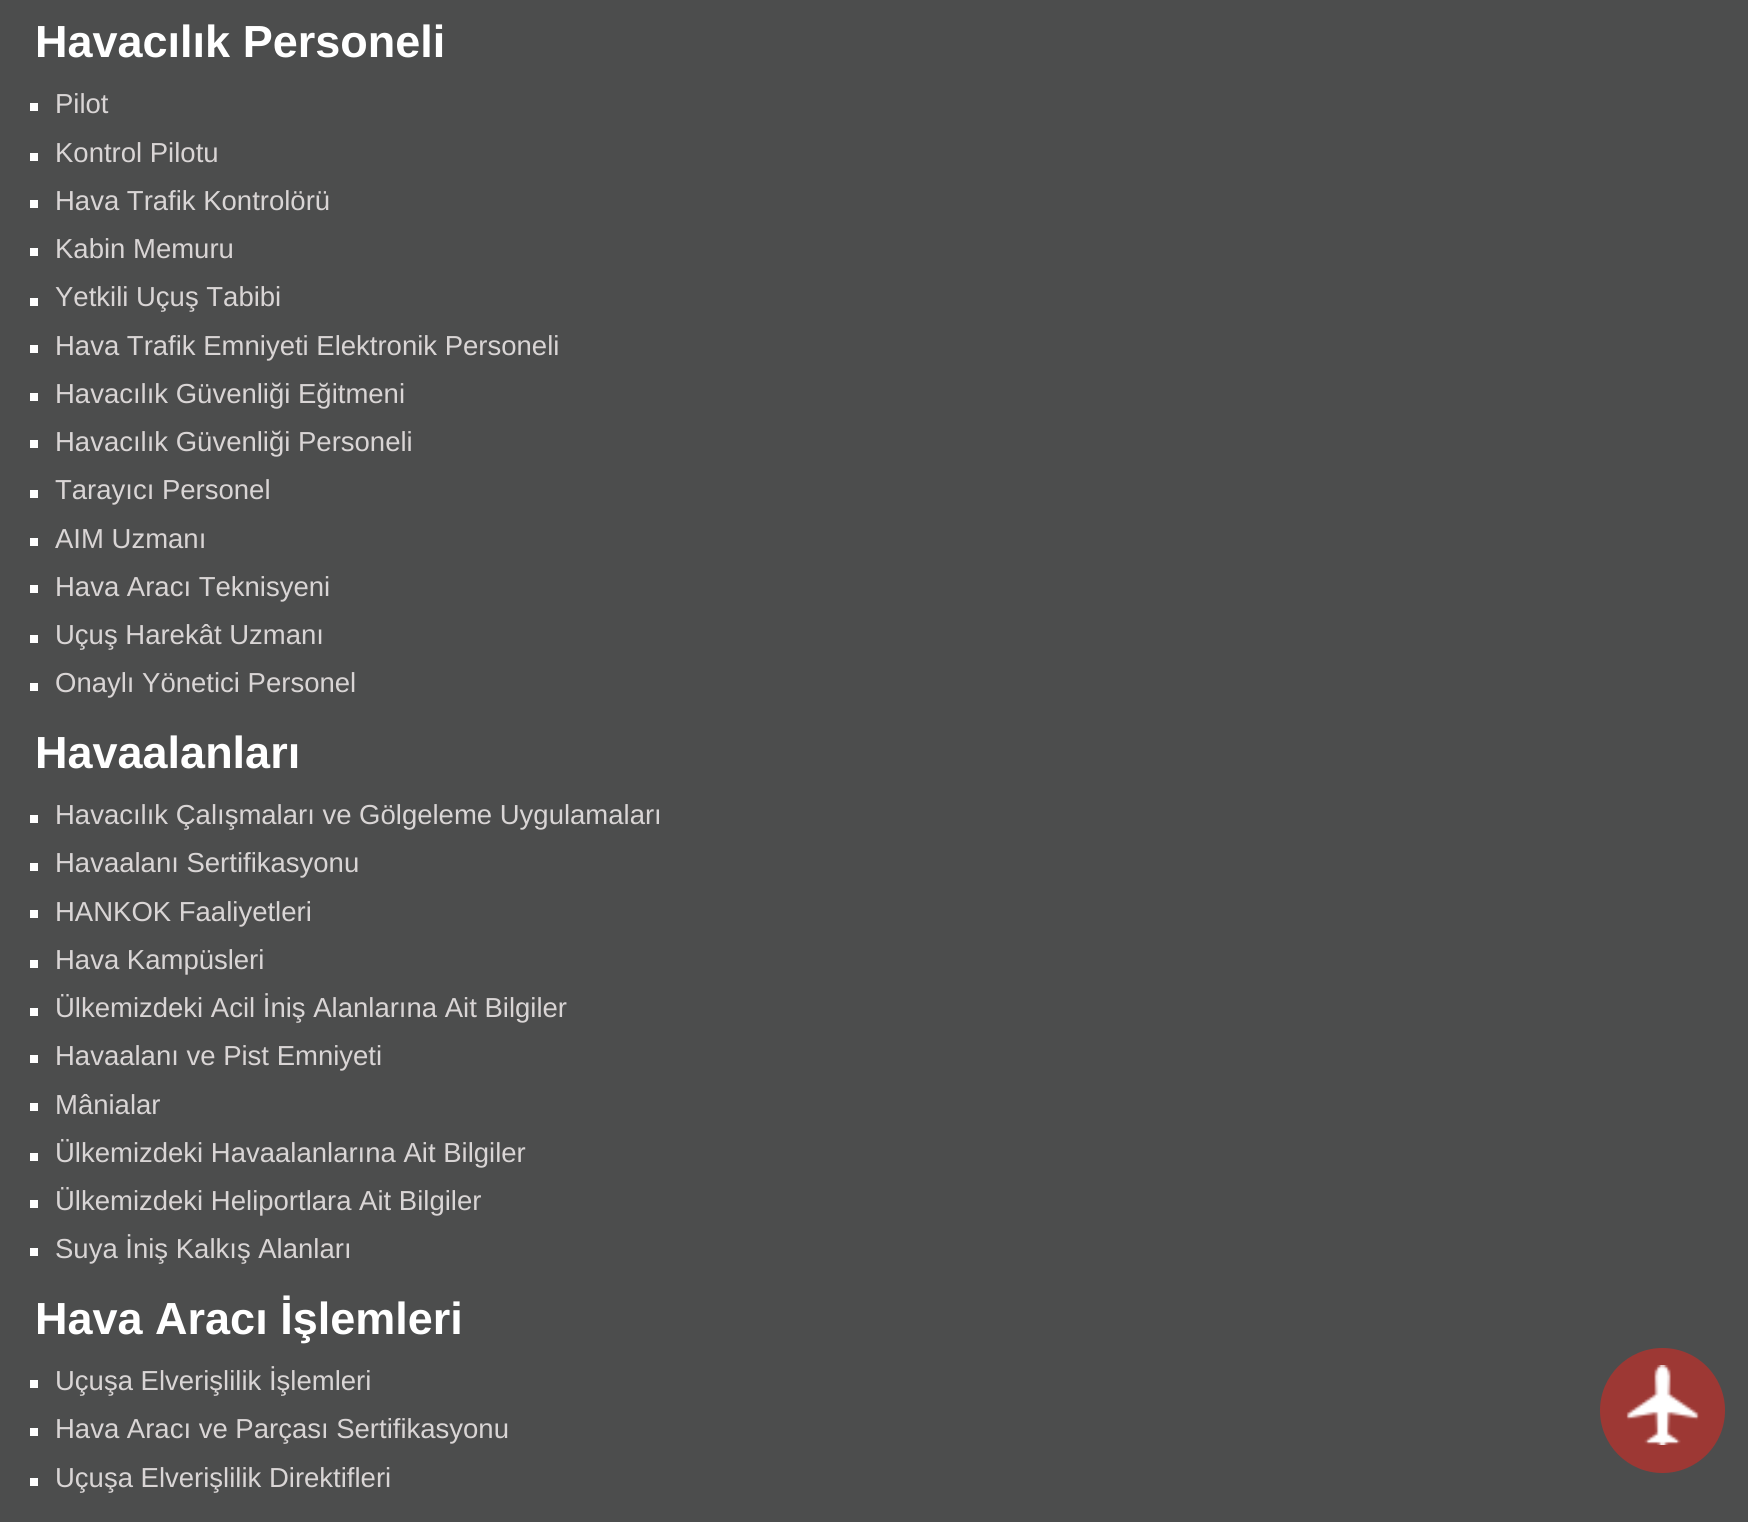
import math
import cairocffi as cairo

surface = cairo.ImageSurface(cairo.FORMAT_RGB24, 1748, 1522)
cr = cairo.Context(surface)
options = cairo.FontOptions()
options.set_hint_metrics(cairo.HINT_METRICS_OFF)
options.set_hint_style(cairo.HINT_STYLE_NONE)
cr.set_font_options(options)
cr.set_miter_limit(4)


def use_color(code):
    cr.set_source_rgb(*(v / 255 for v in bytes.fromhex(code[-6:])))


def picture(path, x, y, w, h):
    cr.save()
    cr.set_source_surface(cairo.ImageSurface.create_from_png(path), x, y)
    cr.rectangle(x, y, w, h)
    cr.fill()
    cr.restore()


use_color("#4c4d4d")
cr.paint()
cr.select_font_face("Liberation Sans", cairo.FONT_SLANT_NORMAL, cairo.FONT_WEIGHT_BOLD)
cr.set_font_size(45)
use_color("#ffffff")
cr.move_to(35, 57)
cr.show_text("Havacılık Personeli")
cr.rectangle(30, 103, 8, 8)
cr.fill()
cr.select_font_face("Liberation Sans")
cr.set_font_size(27.5)
use_color("#d9d5d5")
cr.move_to(55, 113)
cr.show_text("Pilot")
use_color("#ffffff")
cr.rectangle(30, 153, 8, 8)
cr.fill()
use_color("#d9d5d5")
cr.move_to(55, 162)
cr.show_text("Kontrol Pilotu")
use_color("#ffffff")
cr.rectangle(30, 200, 8, 8)
cr.fill()
use_color("#d9d5d5")
cr.move_to(55, 210)
cr.show_text("Hava Trafik Kontrolörü")
use_color("#ffffff")
cr.rectangle(30, 248, 8, 8)
cr.fill()
use_color("#d9d5d5")
cr.move_to(55, 258)
cr.show_text("Kabin Memuru")
use_color("#ffffff")
cr.rectangle(30, 298, 8, 8)
cr.fill()
use_color("#d9d5d5")
cr.move_to(55, 306)
cr.show_text("Yetkili Uçuş Tabibi")
use_color("#ffffff")
cr.rectangle(30, 345, 8, 8)
cr.fill()
use_color("#d9d5d5")
cr.move_to(55, 355)
cr.show_text("Hava Trafik Emniyeti Elektronik Personeli")
use_color("#ffffff")
cr.rectangle(30, 393, 8, 8)
cr.fill()
use_color("#d9d5d5")
cr.move_to(55, 403)
cr.show_text("Havacılık Güvenliği Eğitmeni")
use_color("#ffffff")
cr.rectangle(30, 440, 8, 8)
cr.fill()
use_color("#d9d5d5")
cr.move_to(55, 451)
cr.show_text("Havacılık Güvenliği Personeli")
use_color("#ffffff")
cr.rectangle(30, 490, 8, 8)
cr.fill()
use_color("#d9d5d5")
cr.move_to(55, 499)
cr.show_text("Tarayıcı Personel")
use_color("#ffffff")
cr.rectangle(30, 538, 8, 8)
cr.fill()
use_color("#d9d5d5")
cr.move_to(55, 548)
cr.show_text("AIM Uzmanı")
use_color("#ffffff")
cr.rectangle(30, 585, 8, 8)
cr.fill()
use_color("#d9d5d5")
cr.move_to(55, 596)
cr.show_text("Hava Aracı Teknisyeni")
use_color("#ffffff")
cr.rectangle(30, 635, 8, 8)
cr.fill()
use_color("#d9d5d5")
cr.move_to(55, 644)
cr.show_text("Uçuş Harekât Uzmanı")
use_color("#ffffff")
cr.rectangle(30, 683, 8, 8)
cr.fill()
use_color("#d9d5d5")
cr.move_to(55, 692)
cr.show_text("Onaylı Yönetici Personel")
cr.select_font_face("Liberation Sans", cairo.FONT_SLANT_NORMAL, cairo.FONT_WEIGHT_BOLD)
cr.set_font_size(45)
use_color("#ffffff")
cr.move_to(35, 768)
cr.show_text("Havaalanları")
cr.rectangle(30, 815, 8, 8)
cr.fill()
cr.select_font_face("Liberation Sans")
cr.set_font_size(27.5)
use_color("#d9d5d5")
cr.move_to(55, 824)
cr.show_text("Havacılık Çalışmaları ve Gölgeleme Uygulamaları")
use_color("#ffffff")
cr.rectangle(30, 863, 8, 8)
cr.fill()
use_color("#d9d5d5")
cr.move_to(55, 872)
cr.show_text("Havaalanı Sertifikasyonu")
use_color("#ffffff")
cr.rectangle(30, 910, 8, 8)
cr.fill()
use_color("#d9d5d5")
cr.move_to(55, 921)
cr.show_text("HANKOK Faaliyetleri")
use_color("#ffffff")
cr.rectangle(30, 960, 8, 8)
cr.fill()
use_color("#d9d5d5")
cr.move_to(55, 969)
cr.show_text("Hava Kampüsleri")
use_color("#ffffff")
cr.rectangle(30, 1008, 8, 8)
cr.fill()
use_color("#d9d5d5")
cr.move_to(55, 1017)
cr.show_text("Ülkemizdeki Acil İniş Alanlarına Ait Bilgiler")
use_color("#ffffff")
cr.rectangle(30, 1055, 8, 8)
cr.fill()
use_color("#d9d5d5")
cr.move_to(55, 1065)
cr.show_text("Havaalanı ve Pist Emniyeti")
use_color("#ffffff")
cr.rectangle(30, 1103, 8, 8)
cr.fill()
use_color("#d9d5d5")
cr.move_to(55, 1114)
cr.show_text("Mânialar")
use_color("#ffffff")
cr.rectangle(30, 1153, 8, 8)
cr.fill()
use_color("#d9d5d5")
cr.move_to(55, 1162)
cr.show_text("Ülkemizdeki Havaalanlarına Ait Bilgiler")
use_color("#ffffff")
cr.rectangle(30, 1200, 8, 8)
cr.fill()
use_color("#d9d5d5")
cr.move_to(55, 1210)
cr.show_text("Ülkemizdeki Heliportlara Ait Bilgiler")
use_color("#ffffff")
cr.rectangle(30, 1248, 8, 8)
cr.fill()
use_color("#d9d5d5")
cr.move_to(55, 1258)
cr.show_text("Suya İniş Kalkış Alanları")
cr.select_font_face("Liberation Sans", cairo.FONT_SLANT_NORMAL, cairo.FONT_WEIGHT_BOLD)
cr.set_font_size(45)
use_color("#ffffff")
cr.move_to(35, 1334)
cr.show_text("Hava Aracı İşlemleri")
cr.rectangle(30, 1380, 8, 8)
cr.fill()
cr.select_font_face("Liberation Sans")
cr.set_font_size(27.5)
use_color("#d9d5d5")
cr.move_to(55, 1390)
cr.show_text("Uçuşa Elverişlilik İşlemleri")
use_color("#ffffff")
cr.rectangle(30, 1428, 8, 8)
cr.fill()
use_color("#d9d5d5")
cr.move_to(55, 1438)
cr.show_text("Hava Aracı ve Parçası Sertifikasyonu")
use_color("#ffffff")
cr.rectangle(30, 1478, 8, 8)
cr.fill()
use_color("#d9d5d5")
cr.move_to(55, 1487)
cr.show_text("Uçuşa Elverişlilik Direktifleri")
use_color("#9d3834")
cr.new_path()
cr.arc(1662.5, 1410.5, 62.5, 0, 2 * math.pi)
cr.fill()
picture("img1.png", 1626, 1365, 73, 80)
surface.write_to_png("result.png")
